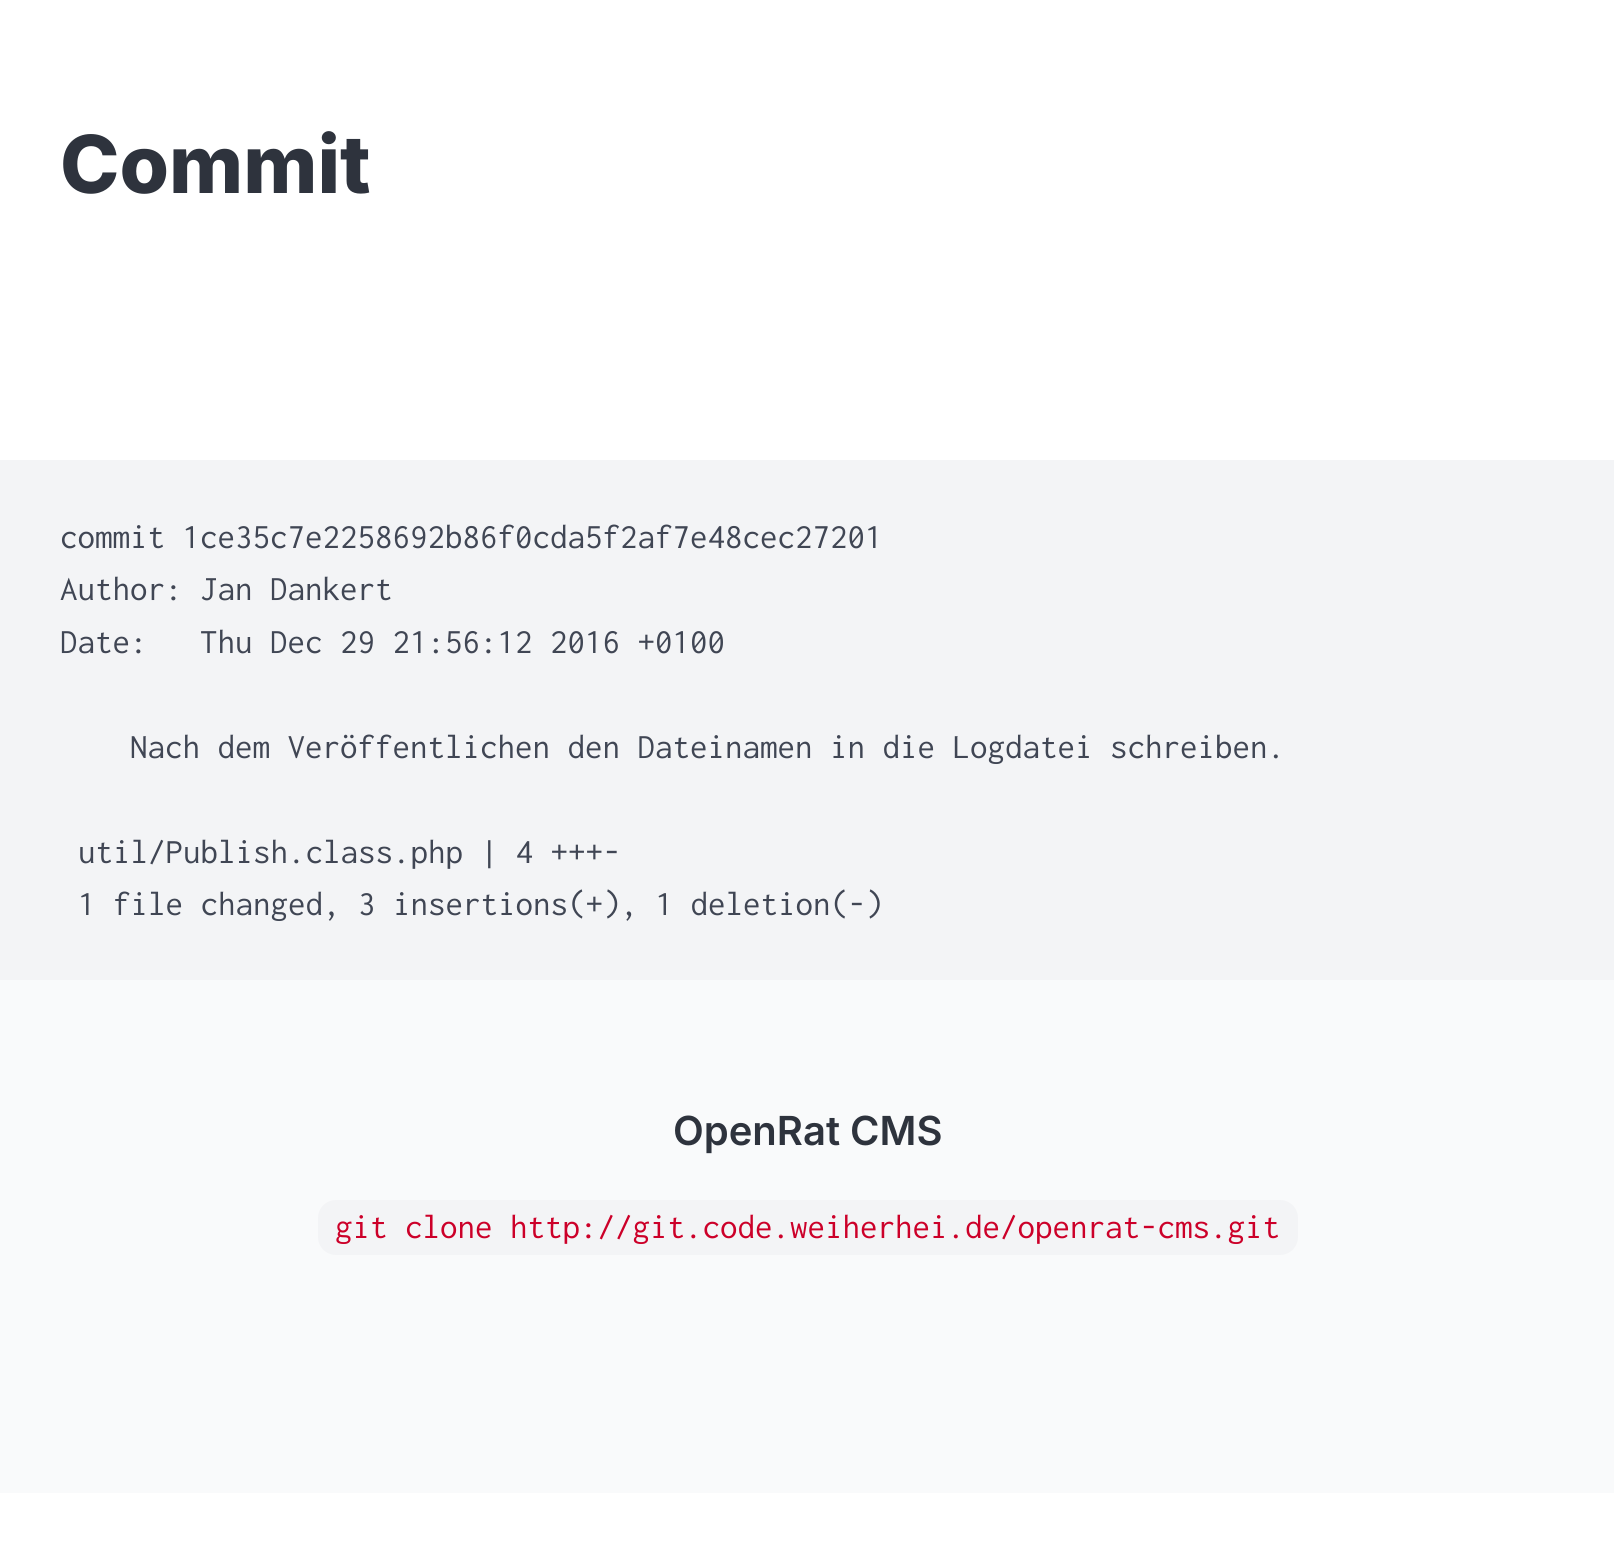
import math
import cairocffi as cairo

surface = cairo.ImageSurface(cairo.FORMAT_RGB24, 1614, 1546)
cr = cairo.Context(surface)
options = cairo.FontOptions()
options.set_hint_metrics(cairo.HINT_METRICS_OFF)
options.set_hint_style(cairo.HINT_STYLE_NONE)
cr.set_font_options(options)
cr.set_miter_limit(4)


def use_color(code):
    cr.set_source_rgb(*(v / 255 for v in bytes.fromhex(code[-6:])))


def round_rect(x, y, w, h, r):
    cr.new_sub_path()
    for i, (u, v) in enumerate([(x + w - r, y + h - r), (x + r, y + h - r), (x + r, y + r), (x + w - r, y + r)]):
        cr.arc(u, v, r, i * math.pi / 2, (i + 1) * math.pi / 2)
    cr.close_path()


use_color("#ffffff")
cr.paint()
cr.select_font_face("Inter ExtraBold")
cr.set_font_size(80)
use_color("#2e333d")
cr.move_to(60, 193)
cr.show_text("Commit")
use_color("#f3f4f6")
cr.rectangle(0, 460, 1614, 520)
cr.fill()
cr.select_font_face("Inconsolata")
cr.set_font_size(35)
use_color("#404654")
cr.move_to(60, 548)
cr.show_text("commit 1ce35c7e2258692b86f0cda5f2af7e48cec27201")
cr.move_to(60, 600)
cr.show_text("Author: Jan Dankert")
cr.move_to(60, 653)
cr.show_text("Date:   Thu Dec 29 21:56:12 2016 +0100")
cr.move_to(130, 758)
cr.show_text("Nach dem Veröffentlichen den Dateinamen in die Logdatei schreiben.")
cr.move_to(78, 863)
cr.show_text("util/Publish.class.php | 4 +++-")
cr.move_to(78, 915)
cr.show_text("1 file changed, 3 insertions(+), 1 deletion(-)")
use_color("#f9fafb")
cr.rectangle(0, 980, 1614, 513)
cr.fill()
cr.select_font_face("Inter SemiBold")
cr.set_font_size(40)
use_color("#2e333d")
cr.move_to(673, 1145)
cr.show_text("OpenRat CMS")
use_color("#f3f4f6")
round_rect(318, 1200, 980, 55, 18)
cr.fill()
cr.select_font_face("Inconsolata")
cr.set_font_size(35)
use_color("#cc0029")
cr.move_to(335, 1238)
cr.show_text("git clone http://git.code.weiherhei.de/openrat-cms.git")
surface.write_to_png("result.png")
